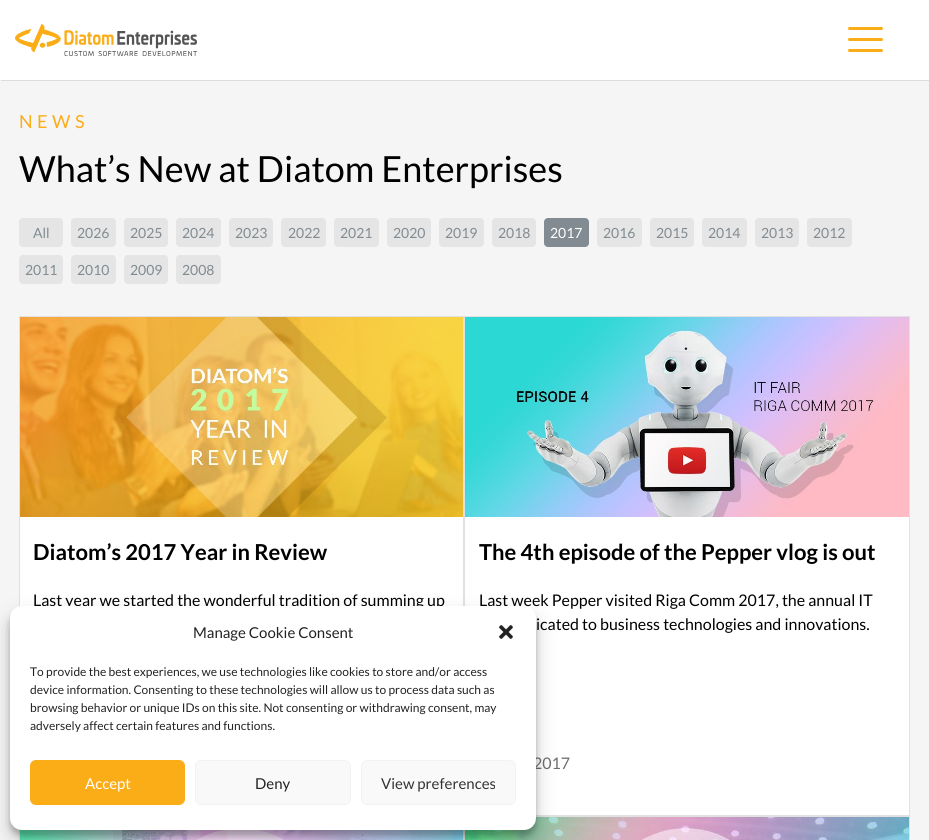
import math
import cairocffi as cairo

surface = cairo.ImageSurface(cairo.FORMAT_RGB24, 929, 840)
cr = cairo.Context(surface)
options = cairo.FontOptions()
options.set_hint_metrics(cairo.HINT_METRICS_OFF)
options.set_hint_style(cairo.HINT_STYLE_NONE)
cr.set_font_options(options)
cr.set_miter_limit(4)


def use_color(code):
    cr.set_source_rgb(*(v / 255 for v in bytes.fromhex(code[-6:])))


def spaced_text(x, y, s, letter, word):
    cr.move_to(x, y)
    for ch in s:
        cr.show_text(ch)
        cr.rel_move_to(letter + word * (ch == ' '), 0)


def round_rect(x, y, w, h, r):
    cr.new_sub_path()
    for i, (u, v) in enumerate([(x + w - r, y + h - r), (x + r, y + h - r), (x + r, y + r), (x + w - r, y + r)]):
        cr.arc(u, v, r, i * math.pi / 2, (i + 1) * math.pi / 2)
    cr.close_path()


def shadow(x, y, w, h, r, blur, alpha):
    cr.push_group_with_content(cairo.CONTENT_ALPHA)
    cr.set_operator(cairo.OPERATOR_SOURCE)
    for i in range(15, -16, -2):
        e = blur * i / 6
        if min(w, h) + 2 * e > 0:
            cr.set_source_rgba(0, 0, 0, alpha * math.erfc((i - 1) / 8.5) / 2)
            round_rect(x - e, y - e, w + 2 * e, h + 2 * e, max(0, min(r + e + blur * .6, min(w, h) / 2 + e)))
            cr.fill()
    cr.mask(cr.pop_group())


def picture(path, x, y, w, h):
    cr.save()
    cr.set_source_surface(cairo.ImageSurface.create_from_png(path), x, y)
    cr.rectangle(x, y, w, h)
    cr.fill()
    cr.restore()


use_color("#f5f5f5")
cr.paint()
use_color("#dcdcdc")
cr.new_path()
cr.move_to(1, 80)
cr.line_to(1, 81)
cr.line_to(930, 81)
cr.line_to(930, 1)
cr.line_to(929, 1)
cr.line_to(929, 80)
cr.close_path()
cr.fill()
use_color("#ffffff")
cr.rectangle(0, 0, 929, 80)
cr.fill()
picture("img1.png", 15, 24, 182, 32)
use_color("#fbad18")
round_rect(848, 27, 35, 3, 1.5)
cr.fill()
round_rect(848, 38, 35, 3, 1.5)
cr.fill()
round_rect(848, 49, 35, 3, 1.5)
cr.fill()
cr.select_font_face("Lato")
cr.set_font_size(18)
spaced_text(19, 128, "NEWS", 4.5, 0)
cr.set_font_size(36)
use_color("#000000")
cr.move_to(19, 182)
cr.show_text("What’s New at Diatom Enterprises")
use_color("#e5e5e5")
round_rect(19, 218, 44, 29, 4)
cr.fill()
cr.set_font_size(14)
use_color("#818b91")
cr.move_to(33, 238)
cr.show_text("All")
use_color("#e5e5e5")
round_rect(71, 218, 45, 29, 4)
cr.fill()
use_color("#818b91")
cr.move_to(77, 238)
cr.show_text("2026")
use_color("#e5e5e5")
round_rect(124, 218, 44, 29, 4)
cr.fill()
use_color("#818b91")
cr.move_to(130, 238)
cr.show_text("2025")
use_color("#e5e5e5")
round_rect(176, 218, 45, 29, 4)
cr.fill()
use_color("#818b91")
cr.move_to(182, 238)
cr.show_text("2024")
use_color("#e5e5e5")
round_rect(229, 218, 44, 29, 4)
cr.fill()
use_color("#818b91")
cr.move_to(235, 238)
cr.show_text("2023")
use_color("#e5e5e5")
round_rect(281, 218, 45, 29, 4)
cr.fill()
use_color("#818b91")
cr.move_to(288, 238)
cr.show_text("2022")
use_color("#e5e5e5")
round_rect(334, 218, 45, 29, 4)
cr.fill()
use_color("#818b91")
cr.move_to(340, 238)
cr.show_text("2021")
use_color("#e5e5e5")
round_rect(387, 218, 44, 29, 4)
cr.fill()
use_color("#818b91")
cr.move_to(393, 238)
cr.show_text("2020")
use_color("#e5e5e5")
round_rect(439, 218, 45, 29, 4)
cr.fill()
use_color("#818b91")
cr.move_to(445, 238)
cr.show_text("2019")
use_color("#e5e5e5")
round_rect(492, 218, 44, 29, 4)
cr.fill()
use_color("#818b91")
cr.move_to(498, 238)
cr.show_text("2018")
round_rect(544, 218, 45, 29, 4)
cr.fill()
use_color("#ffffff")
cr.move_to(550, 238)
cr.show_text("2017")
use_color("#e5e5e5")
round_rect(597, 218, 45, 29, 4)
cr.fill()
use_color("#818b91")
cr.move_to(603, 238)
cr.show_text("2016")
use_color("#e5e5e5")
round_rect(650, 218, 44, 29, 4)
cr.fill()
use_color("#818b91")
cr.move_to(656, 238)
cr.show_text("2015")
use_color("#e5e5e5")
round_rect(702, 218, 45, 29, 4)
cr.fill()
use_color("#818b91")
cr.move_to(708, 238)
cr.show_text("2014")
use_color("#e5e5e5")
round_rect(755, 218, 44, 29, 4)
cr.fill()
use_color("#818b91")
cr.move_to(761, 238)
cr.show_text("2013")
use_color("#e5e5e5")
round_rect(807, 218, 45, 29, 4)
cr.fill()
use_color("#818b91")
cr.move_to(813, 238)
cr.show_text("2012")
use_color("#e5e5e5")
round_rect(19, 255, 44, 29, 4)
cr.fill()
use_color("#818b91")
cr.move_to(25, 275)
cr.show_text("2011")
use_color("#e5e5e5")
round_rect(71, 255, 45, 29, 4)
cr.fill()
use_color("#818b91")
cr.move_to(77, 275)
cr.show_text("2010")
use_color("#e5e5e5")
round_rect(124, 255, 44, 29, 4)
cr.fill()
use_color("#818b91")
cr.move_to(130, 275)
cr.show_text("2009")
use_color("#e5e5e5")
round_rect(176, 255, 45, 29, 4)
cr.fill()
use_color("#818b91")
cr.move_to(182, 275)
cr.show_text("2008")
use_color("#ffffff")
cr.rectangle(20, 517, 443, 90)
cr.fill()
cr.rectangle(19.5, 316.5, 444, 499)
use_color("#e1e1e1")
cr.set_line_width(1)
cr.stroke()
picture("img2.png", 20, 317, 443, 200)
cr.select_font_face("Lato", cairo.FONT_SLANT_NORMAL, cairo.FONT_WEIGHT_BOLD)
cr.set_font_size(22)
use_color("#000000")
cr.move_to(33, 560)
cr.show_text("Diatom’s 2017 Year in Review")
cr.select_font_face("Lato")
cr.set_font_size(16)
cr.move_to(33, 606)
cr.show_text("Last year we started the wonderful tradition of summing up")
use_color("#ffffff")
cr.rectangle(465, 517, 444, 298)
cr.fill()
cr.rectangle(464.5, 316.5, 445, 499)
use_color("#e1e1e1")
cr.stroke()
picture("img3.png", 465, 317, 444, 200)
cr.select_font_face("Lato", cairo.FONT_SLANT_NORMAL, cairo.FONT_WEIGHT_BOLD)
cr.set_font_size(22)
use_color("#000000")
cr.move_to(479, 560)
cr.show_text("The 4th episode of the Pepper vlog is out")
cr.select_font_face("Lato")
cr.set_font_size(16)
cr.move_to(479, 606)
cr.show_text("Last week Pepper visited Riga Comm 2017, the annual IT")
cr.move_to(536, 630)
cr.show_text("icated to business technologies and innovations.")
use_color("#706e72")
cr.move_to(533, 769)
cr.show_text("2017")
cr.rectangle(19.5, 816.5, 444, 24)
use_color("#e1e1e1")
cr.stroke()
picture("img4.png", 20, 829, 443, 11)
cr.rectangle(464.5, 816.5, 445, 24)
cr.stroke()
picture("img5.png", 465, 817, 444, 23)
use_color("#000000")
shadow(10, 612, 526, 224, 12, 3, 0.23)
shadow(10, 616, 526, 224, 12, 10, 0.19)
use_color("#ffffff")
round_rect(10, 606, 526, 224, 12)
cr.fill()
cr.set_font_size(15)
use_color("#222222")
cr.move_to(193, 638)
cr.show_text("Manage Cookie Consent")
picture("img6.png", 499, 625, 14, 14)
cr.set_font_size(12)
cr.move_to(30, 676)
cr.show_text("To provide the best experiences, we use technologies like cookies to store and/or access")
cr.move_to(30, 694)
cr.show_text("device information. Consenting to these technologies will allow us to process data such as")
cr.move_to(30, 712)
cr.show_text("browsing behavior or unique IDs on this site. Not consenting or withdrawing consent, may")
cr.move_to(30, 730)
cr.show_text("adversely affect certain features and functions.")
use_color("#fbad18")
round_rect(30.5, 760.5, 154, 44, 5.5)
cr.fill_preserve()
cr.stroke()
cr.set_font_size(15)
use_color("#ffffff")
cr.move_to(85, 789)
cr.show_text("Accept")
use_color("#f9f9f9")
round_rect(195.5, 760.5, 155, 44, 5.5)
cr.fill_preserve()
use_color("#f2f2f2")
cr.stroke()
use_color("#222222")
cr.move_to(255, 789)
cr.show_text("Deny")
use_color("#f9f9f9")
round_rect(361.5, 760.5, 154, 44, 5.5)
cr.fill_preserve()
use_color("#f2f2f2")
cr.stroke()
use_color("#333333")
cr.move_to(381, 789)
cr.show_text("View preferences")
surface.write_to_png("result.png")
